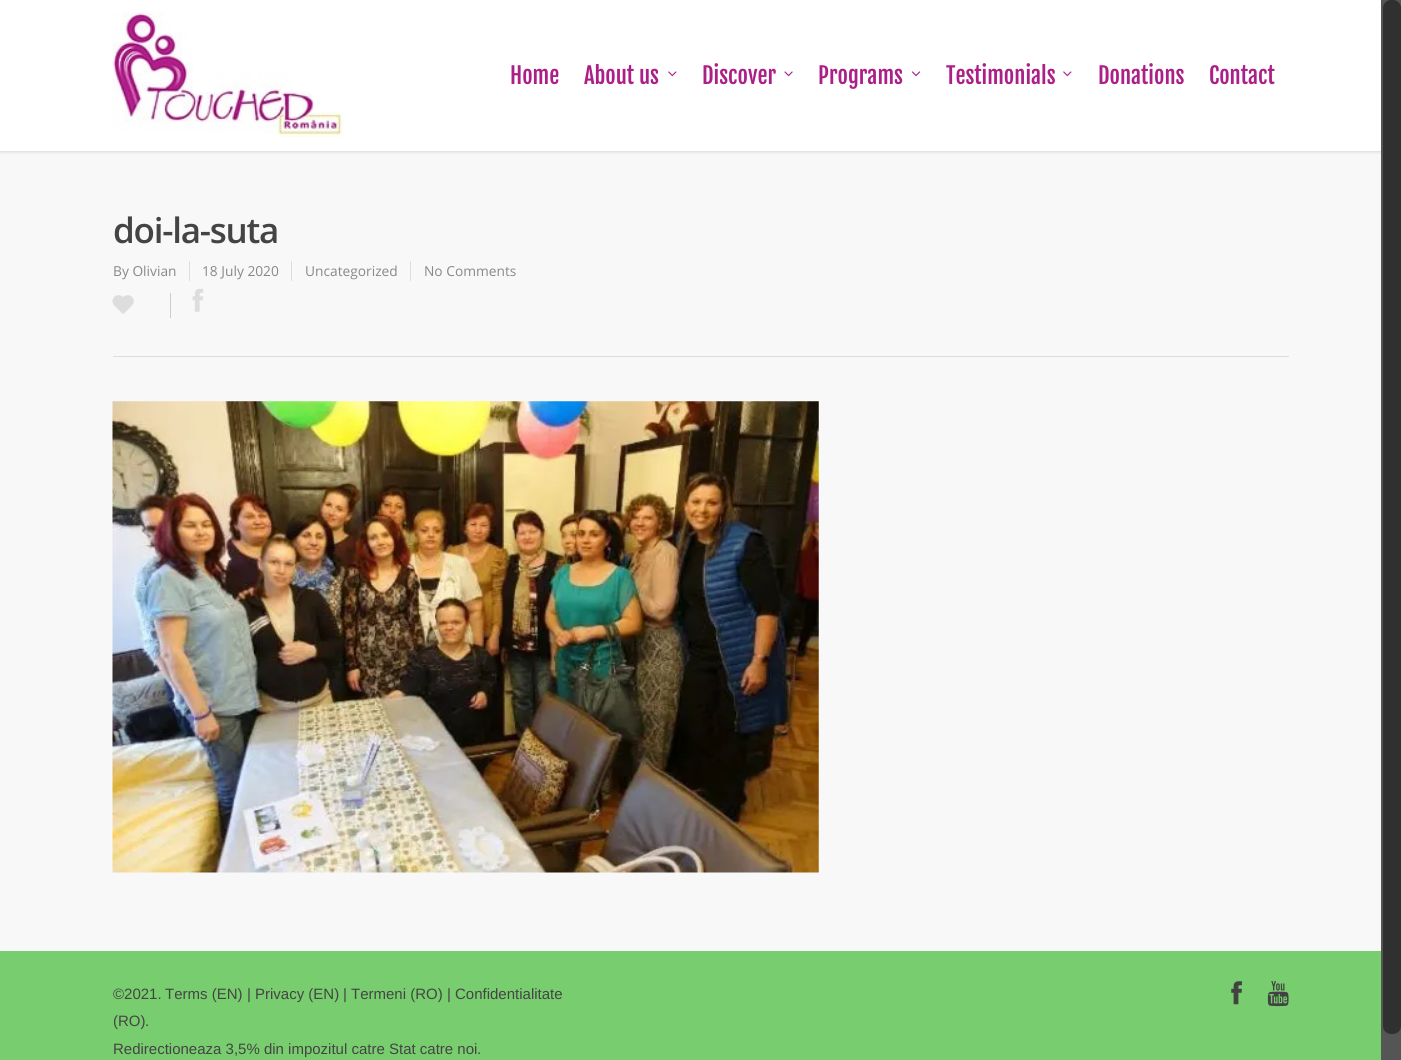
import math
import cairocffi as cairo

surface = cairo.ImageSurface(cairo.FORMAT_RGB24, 1401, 1060)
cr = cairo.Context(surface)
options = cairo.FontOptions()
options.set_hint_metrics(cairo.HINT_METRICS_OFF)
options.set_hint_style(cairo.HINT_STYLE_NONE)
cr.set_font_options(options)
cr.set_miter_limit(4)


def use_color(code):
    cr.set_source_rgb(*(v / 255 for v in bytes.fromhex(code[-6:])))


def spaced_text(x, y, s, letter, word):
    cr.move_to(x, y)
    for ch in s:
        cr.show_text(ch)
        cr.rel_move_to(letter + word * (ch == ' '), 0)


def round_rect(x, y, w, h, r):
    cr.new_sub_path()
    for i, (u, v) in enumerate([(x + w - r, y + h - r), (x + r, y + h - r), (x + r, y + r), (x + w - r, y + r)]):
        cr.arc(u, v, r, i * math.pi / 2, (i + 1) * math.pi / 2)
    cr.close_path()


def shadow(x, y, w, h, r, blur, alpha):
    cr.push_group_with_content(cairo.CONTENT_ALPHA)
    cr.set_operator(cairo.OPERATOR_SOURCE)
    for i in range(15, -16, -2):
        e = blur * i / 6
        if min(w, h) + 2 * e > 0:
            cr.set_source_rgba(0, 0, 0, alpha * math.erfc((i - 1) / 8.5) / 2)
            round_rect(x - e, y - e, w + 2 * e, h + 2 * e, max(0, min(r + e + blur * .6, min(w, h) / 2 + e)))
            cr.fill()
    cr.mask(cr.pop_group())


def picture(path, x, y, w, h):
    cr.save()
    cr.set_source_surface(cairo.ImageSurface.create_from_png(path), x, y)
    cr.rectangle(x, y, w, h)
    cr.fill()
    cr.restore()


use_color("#f8f8f8")
cr.paint()
use_color("#000000")
shadow(0, 0, 1401, 151, 0, 2, 0.22)
use_color("#ffffff")
cr.rectangle(0, 0, 1381, 151)
cr.fill()
picture("img1.png", 112, 12, 232, 126)
cr.select_font_face("Fjalla One")
cr.set_font_size(22.5)
use_color("#ac1f87")
cr.move_to(510, 84)
cr.show_text("Home")
cr.move_to(584, 84)
cr.show_text("About us")
picture("img2.png", 668, 71, 9, 6)
cr.move_to(702, 84)
cr.show_text("Discover")
picture("img3.png", 784, 71, 9, 6)
cr.move_to(818, 84)
cr.show_text("Programs")
picture("img4.png", 912, 71, 9, 6)
cr.move_to(946, 84)
cr.show_text("Testimonials")
picture("img2.png", 1063, 71, 9, 6)
cr.move_to(1098, 84)
cr.show_text("Donations")
cr.move_to(1209, 84)
cr.show_text("Contact")
use_color("#555555")
cr.rectangle(1381, 0, 20, 1060)
cr.fill()
use_color("#303030")
round_rect(1383, 0, 18, 1034, 8)
cr.fill()
use_color("#dddddd")
cr.rectangle(113, 356, 1176, 1)
cr.fill()
cr.select_font_face("Open Sans SemiBold")
cr.set_font_size(35)
use_color("#444444")
spaced_text(113, 243, "doi-la-suta", -1.25, 0)
cr.select_font_face("Open Sans")
cr.set_font_size(13.75)
use_color("#888888")
cr.move_to(113, 276)
cr.show_text("By Olivian")
use_color("#dddddd")
cr.rectangle(189, 261, 1, 20)
cr.fill()
use_color("#888888")
cr.move_to(202, 276)
cr.show_text("18 July 2020")
use_color("#dddddd")
cr.rectangle(291, 261, 1, 20)
cr.fill()
use_color("#888888")
cr.move_to(305, 276)
cr.show_text("Uncategorized")
use_color("#dddddd")
cr.rectangle(410, 261, 1, 20)
cr.fill()
use_color("#888888")
cr.move_to(424, 276)
cr.show_text("No Comments")
use_color("#cccccc")
cr.rectangle(170, 293, 1, 25)
cr.fill()
picture("img5.png", 112, 295, 22, 19)
picture("img6.png", 192, 288, 12, 24)
picture("img7.png", 112, 401, 707, 472)
use_color("#78cd6e")
cr.rectangle(0, 951, 1381, 109)
cr.fill()
cr.select_font_face("Liberation Sans")
cr.set_font_size(15)
use_color("#444444")
cr.move_to(113, 999)
cr.show_text("©2021.")
cr.move_to(165, 999)
cr.show_text("Terms (EN)")
cr.move_to(247, 999)
cr.show_text("|")
cr.move_to(255, 999)
cr.show_text("Privacy (EN)")
cr.move_to(343, 999)
cr.show_text("|")
cr.move_to(351, 999)
cr.show_text("Termeni (RO)")
cr.move_to(447, 999)
cr.show_text("|")
cr.move_to(455, 999)
cr.show_text("Confidentialitate")
cr.move_to(113, 1026)
cr.show_text("(RO)")
cr.move_to(145, 1026)
cr.show_text(".")
cr.move_to(113, 1054)
cr.show_text("Redirectioneaza 3,5% din impozitul catre Stat catre noi")
cr.move_to(477, 1054)
cr.show_text(".")
picture("img8.png", 1231, 981, 11, 24)
picture("img9.png", 1267, 981, 22, 26)
surface.write_to_png("result.png")
